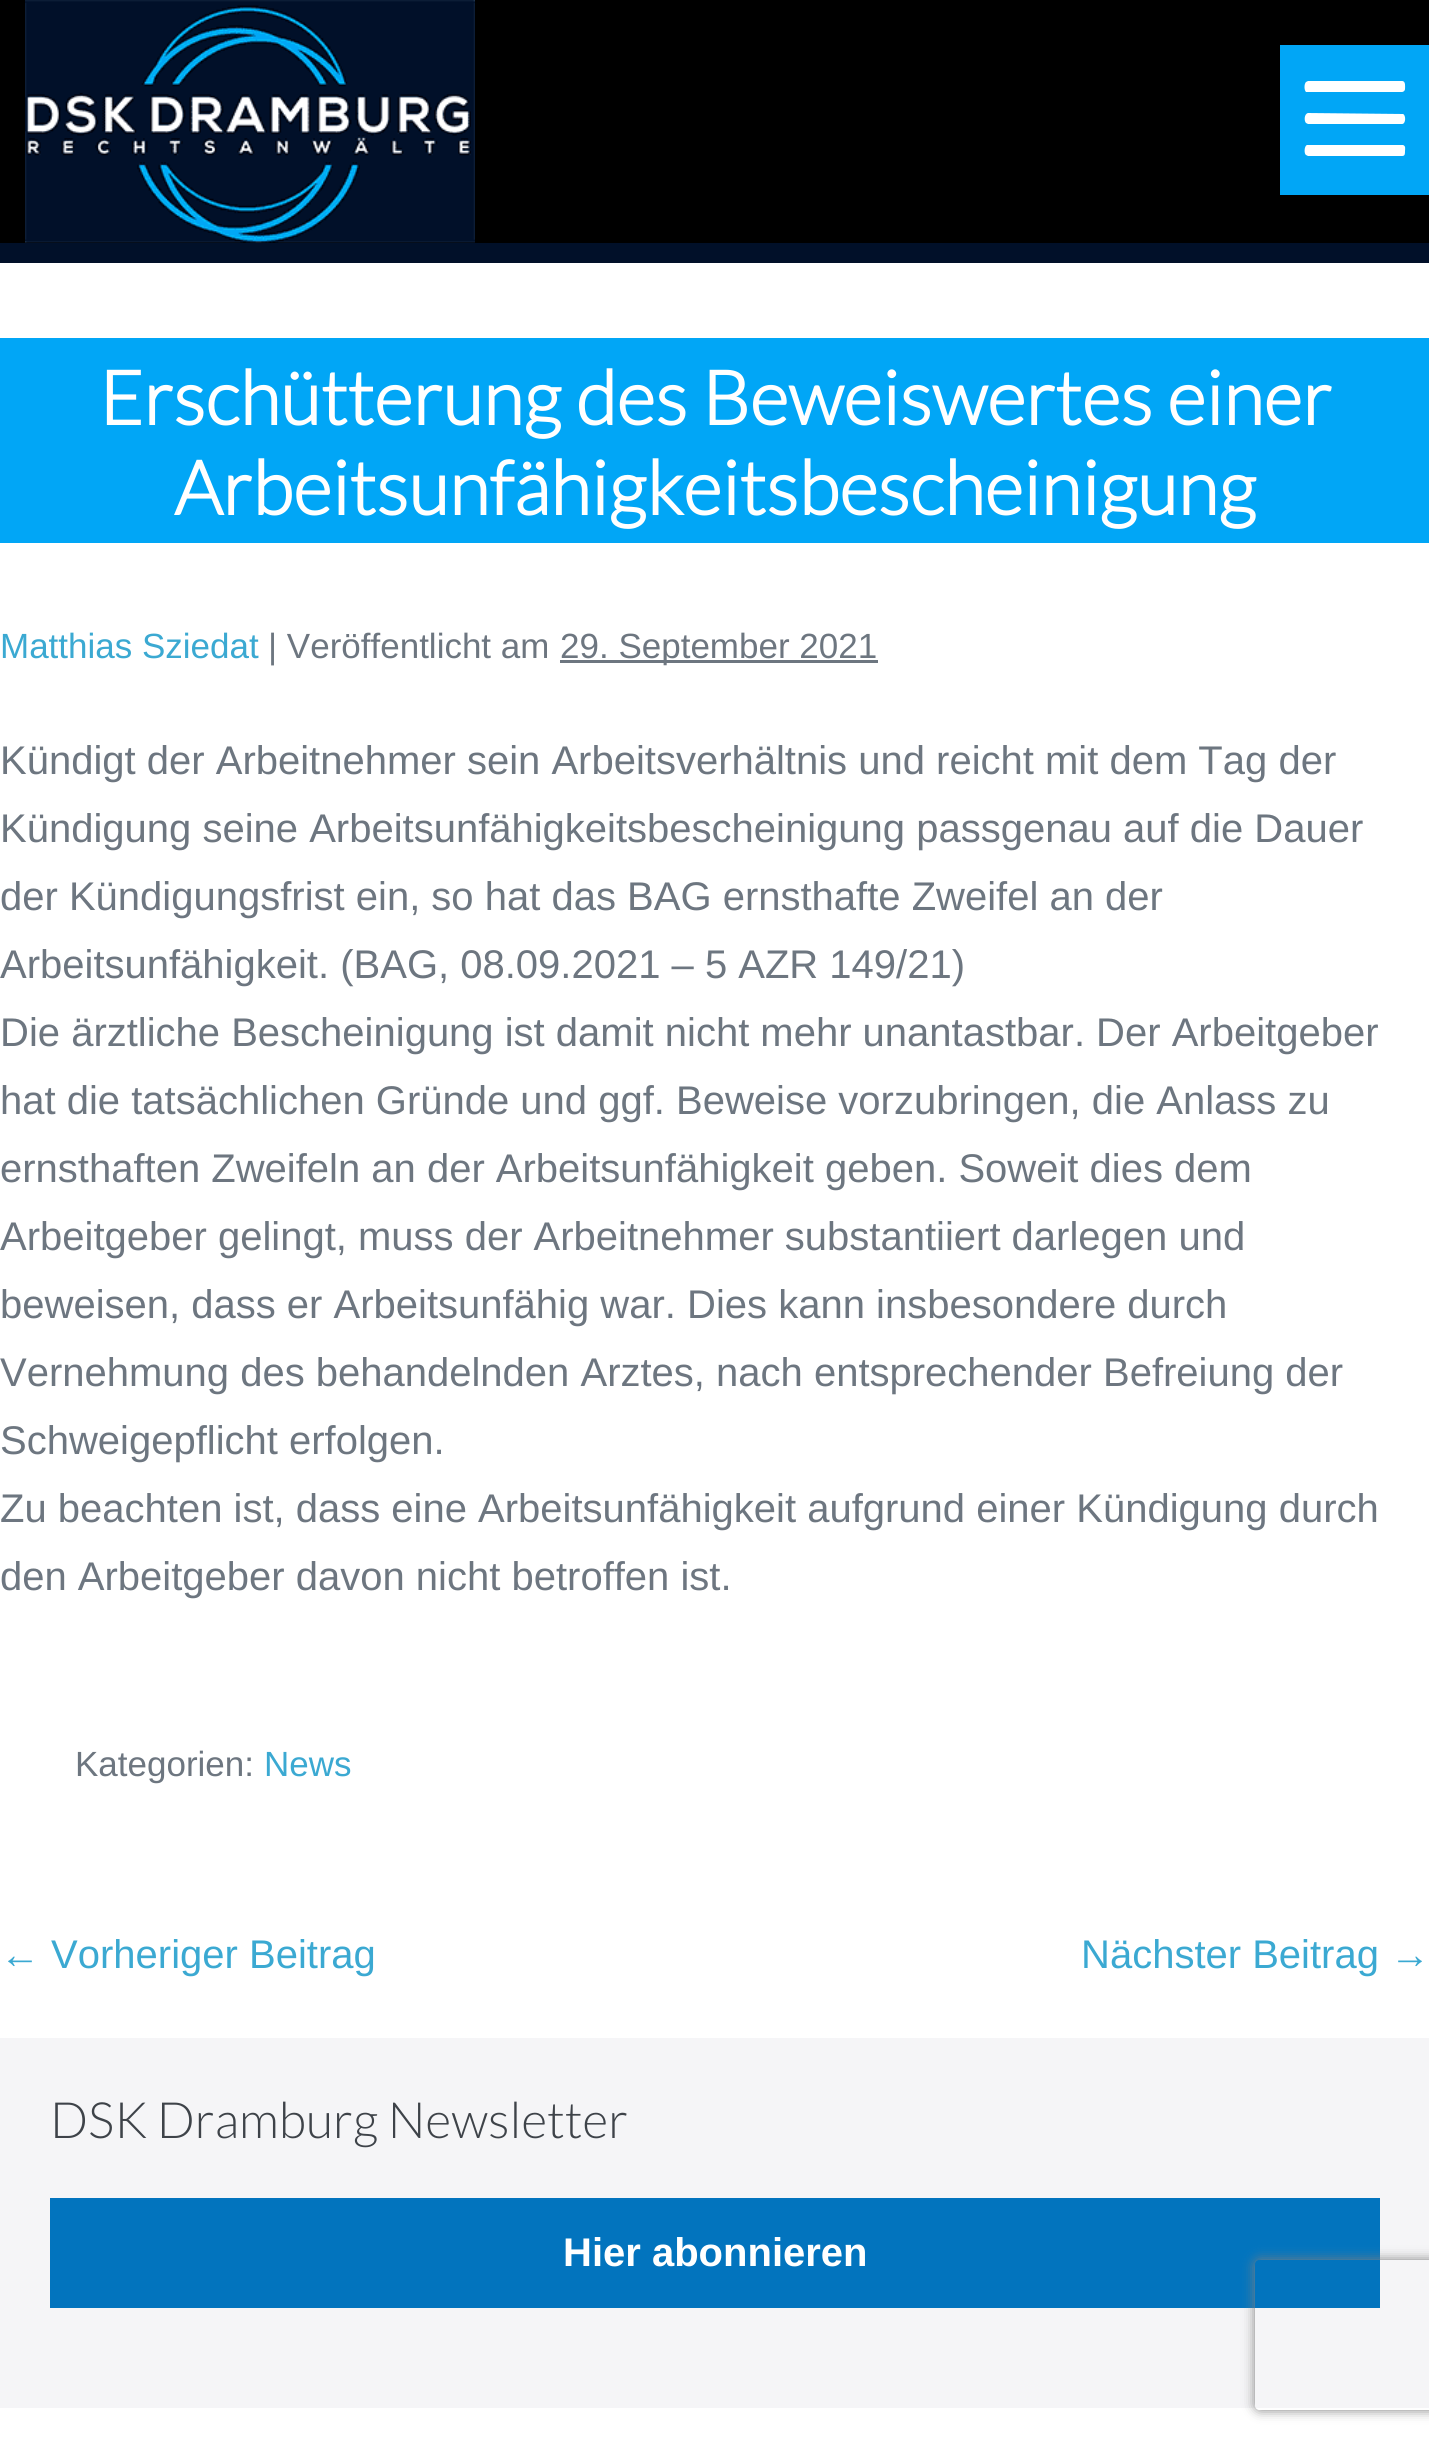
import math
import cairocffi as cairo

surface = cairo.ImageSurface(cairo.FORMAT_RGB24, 1429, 2443)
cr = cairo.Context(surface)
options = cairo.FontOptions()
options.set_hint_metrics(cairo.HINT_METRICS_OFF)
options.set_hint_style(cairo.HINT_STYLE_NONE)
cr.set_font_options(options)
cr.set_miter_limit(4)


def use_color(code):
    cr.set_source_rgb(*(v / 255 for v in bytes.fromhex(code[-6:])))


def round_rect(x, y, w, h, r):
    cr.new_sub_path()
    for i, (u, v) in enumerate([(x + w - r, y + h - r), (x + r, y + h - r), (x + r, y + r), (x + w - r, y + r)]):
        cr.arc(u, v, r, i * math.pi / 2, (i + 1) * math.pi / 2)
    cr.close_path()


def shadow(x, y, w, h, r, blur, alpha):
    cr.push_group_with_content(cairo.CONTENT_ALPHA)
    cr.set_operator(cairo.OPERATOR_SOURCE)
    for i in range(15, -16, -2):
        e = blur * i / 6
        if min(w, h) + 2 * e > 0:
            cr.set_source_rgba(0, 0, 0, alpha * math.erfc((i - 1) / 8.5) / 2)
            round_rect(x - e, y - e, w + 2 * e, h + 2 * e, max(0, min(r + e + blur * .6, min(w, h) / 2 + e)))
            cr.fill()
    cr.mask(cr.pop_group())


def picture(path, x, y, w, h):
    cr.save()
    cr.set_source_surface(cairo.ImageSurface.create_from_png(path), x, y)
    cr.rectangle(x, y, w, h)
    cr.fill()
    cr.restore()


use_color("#ffffff")
cr.paint()
use_color("#011029")
cr.rectangle(0, 243, 1429, 20)
cr.fill()
use_color("#000000")
cr.rectangle(0, 0, 1429, 243)
cr.fill()
picture("img1.png", 25, 0, 450, 243)
use_color("#01a6f6")
cr.rectangle(1280, 45, 149, 150)
cr.fill()
use_color("#ffffff")
cr.new_path()
cr.move_to(1402, 124)
cr.line_to(1308, 124)
cr.line_to(1306, 123)
cr.curve_to(1304, 121, 1304, 114, 1308, 113)
cr.line_to(1403, 114)
cr.curve_to(1406, 115, 1406, 124, 1402, 124)
cr.close_path()
cr.move_to(1402, 156)
cr.line_to(1308, 156)
cr.line_to(1306, 155)
cr.curve_to(1304, 154, 1304, 146, 1307, 145)
cr.line_to(1403, 145)
cr.curve_to(1406, 146, 1405, 149, 1405, 151)
cr.curve_to(1405, 154, 1405, 156, 1402, 156)
cr.close_path()
cr.move_to(1402, 92)
cr.line_to(1308, 92)
cr.line_to(1306, 92)
cr.curve_to(1304, 90, 1304, 84, 1306, 82)
cr.line_to(1308, 81)
cr.line_to(1402, 81)
cr.curve_to(1406, 81, 1405, 87, 1405, 89)
cr.curve_to(1405, 91, 1403, 92, 1402, 92)
cr.close_path()
cr.fill()
use_color("#01a6f6")
cr.rectangle(0, 338, 1429, 205)
cr.fill()
cr.select_font_face("Lato", cairo.FONT_SLANT_NORMAL, cairo.FONT_WEIGHT_BOLD)
cr.set_font_size(75)
use_color("#ffffff")
cr.move_to(99, 425)
cr.show_text("Erschütterung des Beweiswertes einer")
cr.move_to(174, 515)
cr.show_text("Arbeitsunfähigkeitsbescheinigung")
cr.select_font_face("Liberation Sans")
cr.set_font_size(35)
use_color("#3ba9d2")
cr.move_to(0, 658)
cr.show_text("Matthias Sziedat")
use_color("#6d7680")
cr.move_to(268, 658)
cr.show_text("| Veröffentlicht am")
cr.rectangle(560, 660, 318, 3)
cr.fill()
cr.move_to(560, 658)
cr.show_text("29. September 2021")
cr.set_font_size(40)
cr.move_to(0, 774)
cr.show_text("Kündigt der Arbeitnehmer sein Arbeitsverhältnis und reicht mit dem Tag der")
cr.move_to(0, 842)
cr.show_text("Kündigung seine Arbeitsunfähigkeitsbescheinigung passgenau auf die Dauer")
cr.move_to(0, 910)
cr.show_text("der Kündigungsfrist ein, so hat das BAG ernsthafte Zweifel an der")
cr.move_to(0, 978)
cr.show_text("Arbeitsunfähigkeit. (BAG, 08.09.2021 – 5 AZR 149/21)")
cr.move_to(0, 1046)
cr.show_text("Die ärztliche Bescheinigung ist damit nicht mehr unantastbar. Der Arbeitgeber")
cr.move_to(0, 1114)
cr.show_text("hat die tatsächlichen Gründe und ggf. Beweise vorzubringen, die Anlass zu")
cr.move_to(0, 1182)
cr.show_text("ernsthaften Zweifeln an der Arbeitsunfähigkeit geben. Soweit dies dem")
cr.move_to(0, 1250)
cr.show_text("Arbeitgeber gelingt, muss der Arbeitnehmer substantiiert darlegen und")
cr.move_to(0, 1318)
cr.show_text("beweisen, dass er Arbeitsunfähig war. Dies kann insbesondere durch")
cr.move_to(0, 1386)
cr.show_text("Vernehmung des behandelnden Arztes, nach entsprechender Befreiung der")
cr.move_to(0, 1454)
cr.show_text("Schweigepflicht erfolgen.")
cr.move_to(0, 1522)
cr.show_text("Zu beachten ist, dass eine Arbeitsunfähigkeit aufgrund einer Kündigung durch")
cr.move_to(0, 1590)
cr.show_text("den Arbeitgeber davon nicht betroffen ist.")
cr.set_font_size(35)
cr.move_to(75, 1776)
cr.show_text("Kategorien:")
use_color("#3ba9d2")
cr.move_to(264, 1776)
cr.show_text("News")
cr.set_font_size(40)
cr.move_to(0, 1968)
cr.show_text("← Vorheriger Beitrag")
cr.move_to(1081, 1968)
cr.show_text("Nächster Beitrag →")
use_color("#f5f5f7")
cr.rectangle(0, 2038, 1429, 370)
cr.fill()
cr.select_font_face("Lato Light")
cr.set_font_size(50)
use_color("#3e4349")
cr.move_to(50, 2138)
cr.show_text("DSK Dramburg Newsletter")
use_color("#0274be")
cr.rectangle(50, 2198, 1330, 110)
cr.fill()
cr.select_font_face("Liberation Sans", cairo.FONT_SLANT_NORMAL, cairo.FONT_WEIGHT_BOLD)
cr.set_font_size(40)
use_color("#ffffff")
cr.move_to(563, 2266)
cr.show_text("Hier abonnieren")
cr.save()
cr.set_fill_rule(cairo.FILL_RULE_EVEN_ODD)
cr.new_path()
cr.move_to(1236, 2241)
cr.line_to(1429, 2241)
cr.line_to(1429, 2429)
cr.line_to(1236, 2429)
cr.close_path()
cr.move_to(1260, 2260)
cr.line_to(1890, 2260)
cr.curve_to(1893, 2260, 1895, 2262, 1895, 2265)
cr.line_to(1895, 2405)
cr.curve_to(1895, 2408, 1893, 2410, 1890, 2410)
cr.line_to(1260, 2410)
cr.curve_to(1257, 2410, 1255, 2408, 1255, 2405)
cr.line_to(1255, 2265)
cr.curve_to(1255, 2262, 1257, 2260, 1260, 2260)
cr.close_path()
cr.clip()
use_color("#808080")
shadow(1255, 2260, 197, 150, 5, 6, 1)
cr.restore()
surface.write_to_png("result.png")
